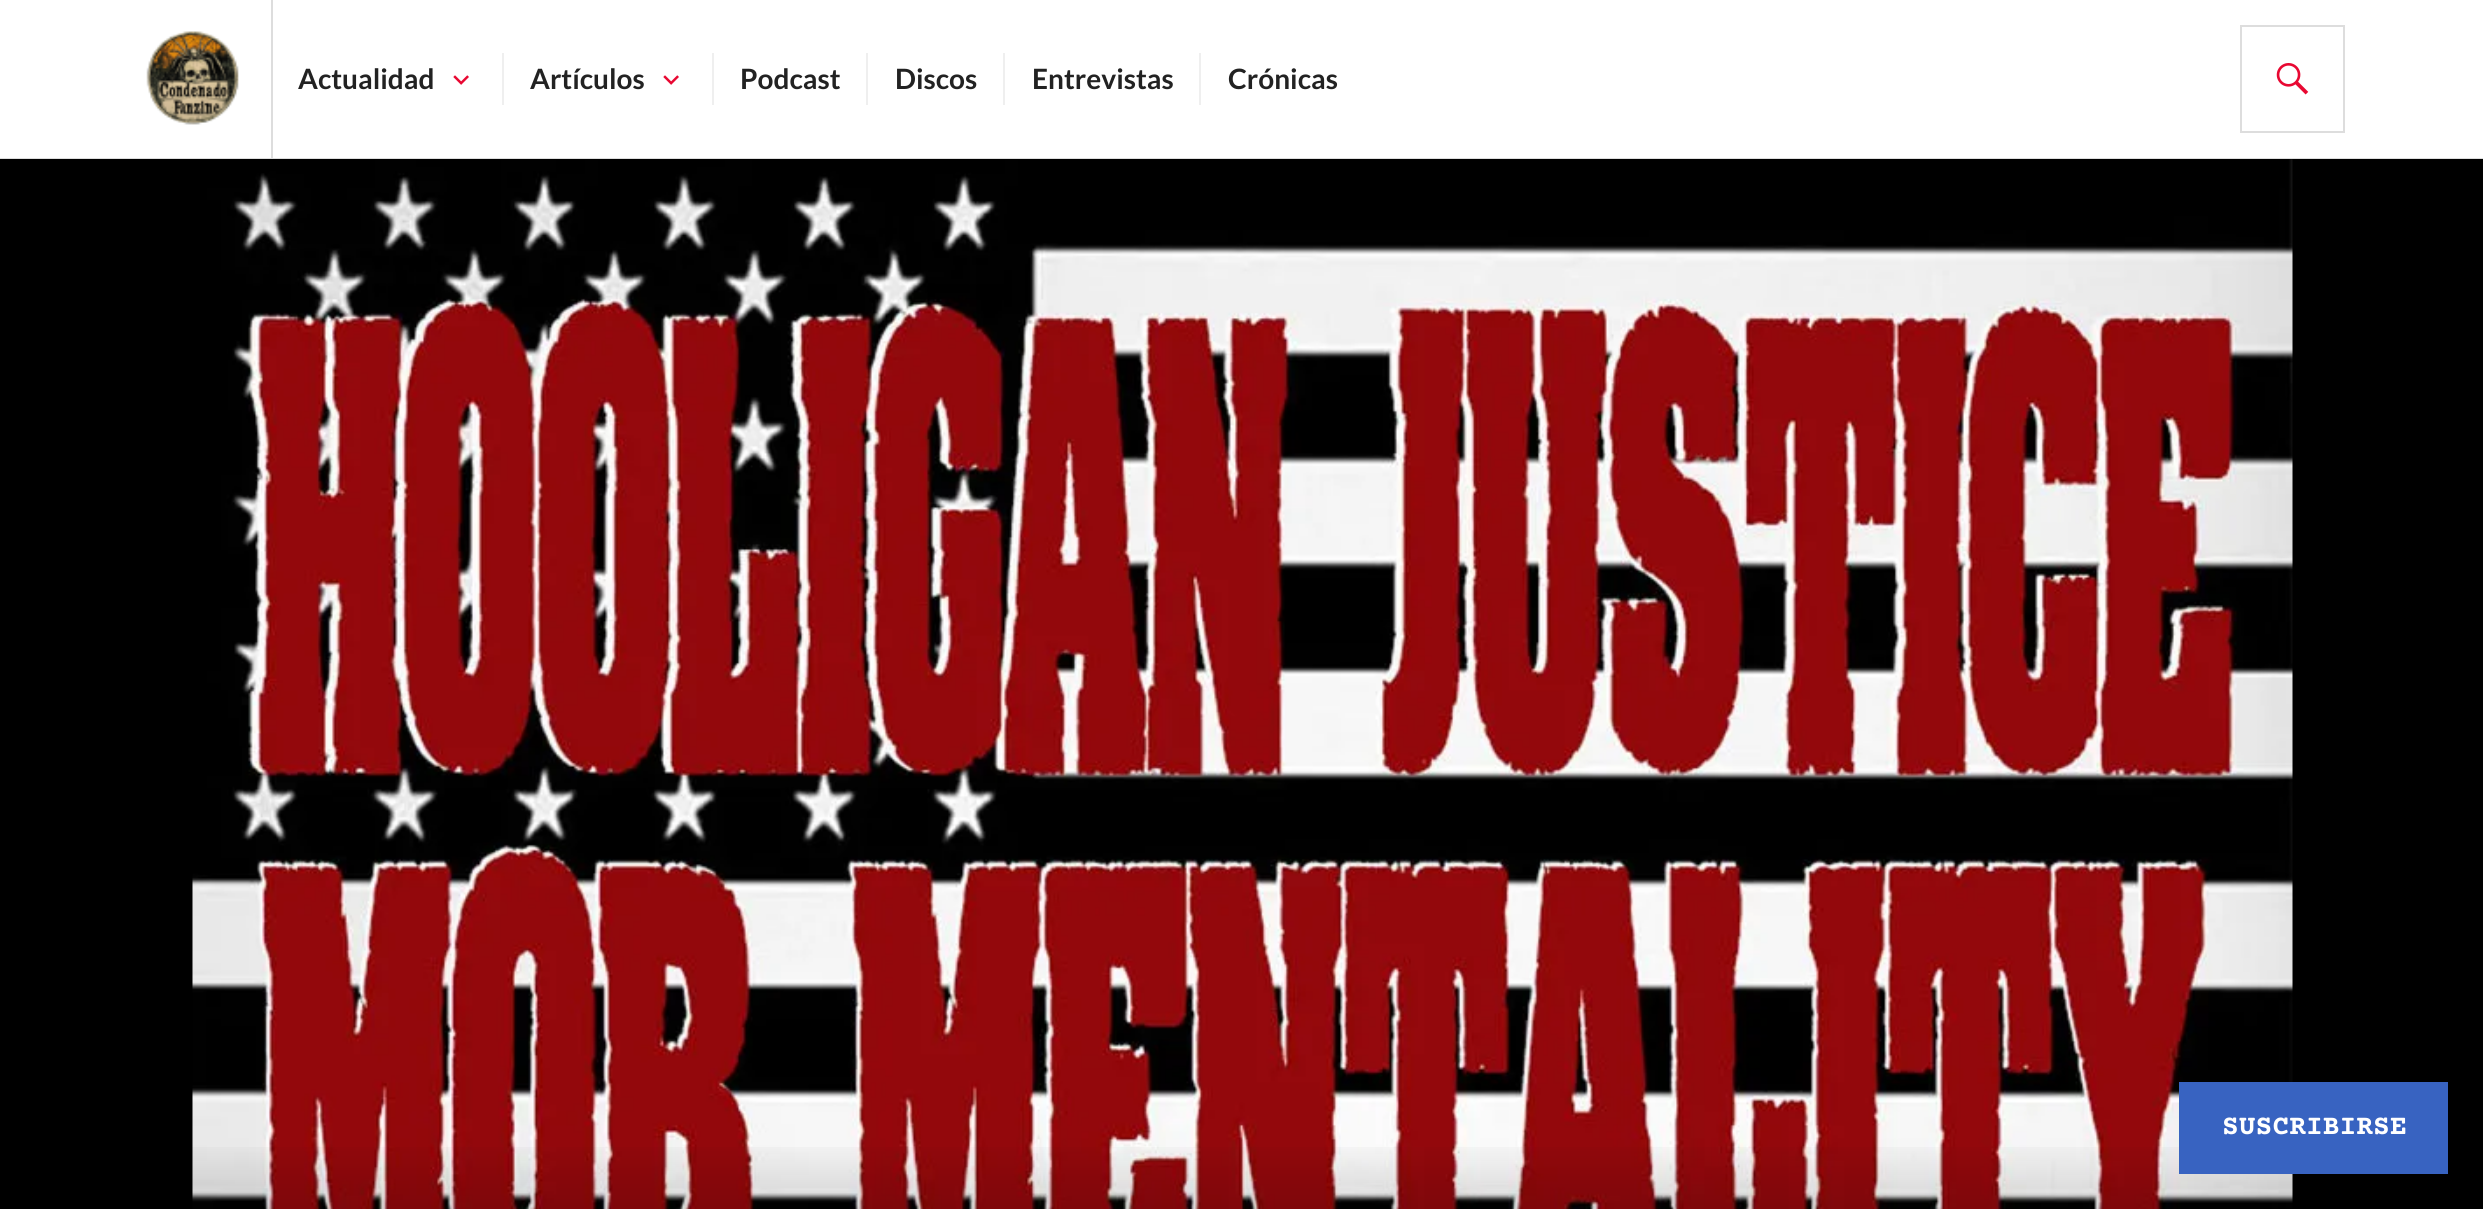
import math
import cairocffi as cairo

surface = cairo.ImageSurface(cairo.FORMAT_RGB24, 2483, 1209)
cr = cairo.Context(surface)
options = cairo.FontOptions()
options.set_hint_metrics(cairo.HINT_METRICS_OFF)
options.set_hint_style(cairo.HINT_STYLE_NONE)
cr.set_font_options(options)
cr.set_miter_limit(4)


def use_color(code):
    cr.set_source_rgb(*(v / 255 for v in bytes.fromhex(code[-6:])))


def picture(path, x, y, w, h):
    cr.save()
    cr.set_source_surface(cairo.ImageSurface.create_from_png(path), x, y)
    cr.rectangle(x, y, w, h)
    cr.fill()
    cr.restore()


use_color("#ffffff")
cr.paint()
use_color("#dddddd")
cr.rectangle(0, 158, 2483, 1)
cr.fill()
picture("img1.png", 146, 31, 93, 94)
cr.rectangle(271, 0, 2, 158)
cr.fill()
cr.select_font_face("Lato", cairo.FONT_SLANT_NORMAL, cairo.FONT_WEIGHT_BOLD)
cr.set_font_size(28)
use_color("#222222")
cr.move_to(298, 89)
cr.show_text("Actualidad")
picture("img2.png", 453, 75, 16, 10)
use_color("#efefef")
cr.rectangle(502, 53, 2, 52)
cr.fill()
use_color("#222222")
cr.move_to(530, 89)
cr.show_text("Artículos")
picture("img2.png", 663, 75, 16, 10)
use_color("#efefef")
cr.rectangle(712, 53, 2, 52)
cr.fill()
use_color("#222222")
cr.move_to(740, 89)
cr.show_text("Podcast")
use_color("#efefef")
cr.rectangle(866, 53, 2, 52)
cr.fill()
use_color("#222222")
cr.move_to(895, 89)
cr.show_text("Discos")
use_color("#efefef")
cr.rectangle(1003, 53, 2, 52)
cr.fill()
use_color("#222222")
cr.move_to(1032, 89)
cr.show_text("Entrevistas")
use_color("#efefef")
cr.rectangle(1199, 53, 2, 52)
cr.fill()
use_color("#222222")
cr.move_to(1228, 89)
cr.show_text("Crónicas")
cr.rectangle(2241, 26, 103, 106)
use_color("#dddddd")
cr.stroke()
picture("img3.png", 2276, 63, 33, 32)
use_color("#000000")
cr.rectangle(0, 159, 2483, 1050)
cr.fill()
picture("img4.png", 192, 159, 2101, 1050)
gradient = cairo.LinearGradient(1242, 1136, 1242, 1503)
gradient.add_color_stop_rgba(0, 0, 0, 0, 0)
gradient.add_color_stop_rgba(1, 0, 0, 0, 0.7)
cr.set_source(gradient)
cr.rectangle(192, 1147, 2101, 62)
cr.fill()
use_color("#3863c1")
cr.rectangle(2179, 1082, 269, 92)
cr.fill()
cr.select_font_face("Courier Prime", cairo.FONT_SLANT_NORMAL, cairo.FONT_WEIGHT_BOLD)
use_color("#ffffff")
cr.move_to(2222, 1134)
cr.show_text("SUSCRIBIRSE")
surface.write_to_png("result.png")
